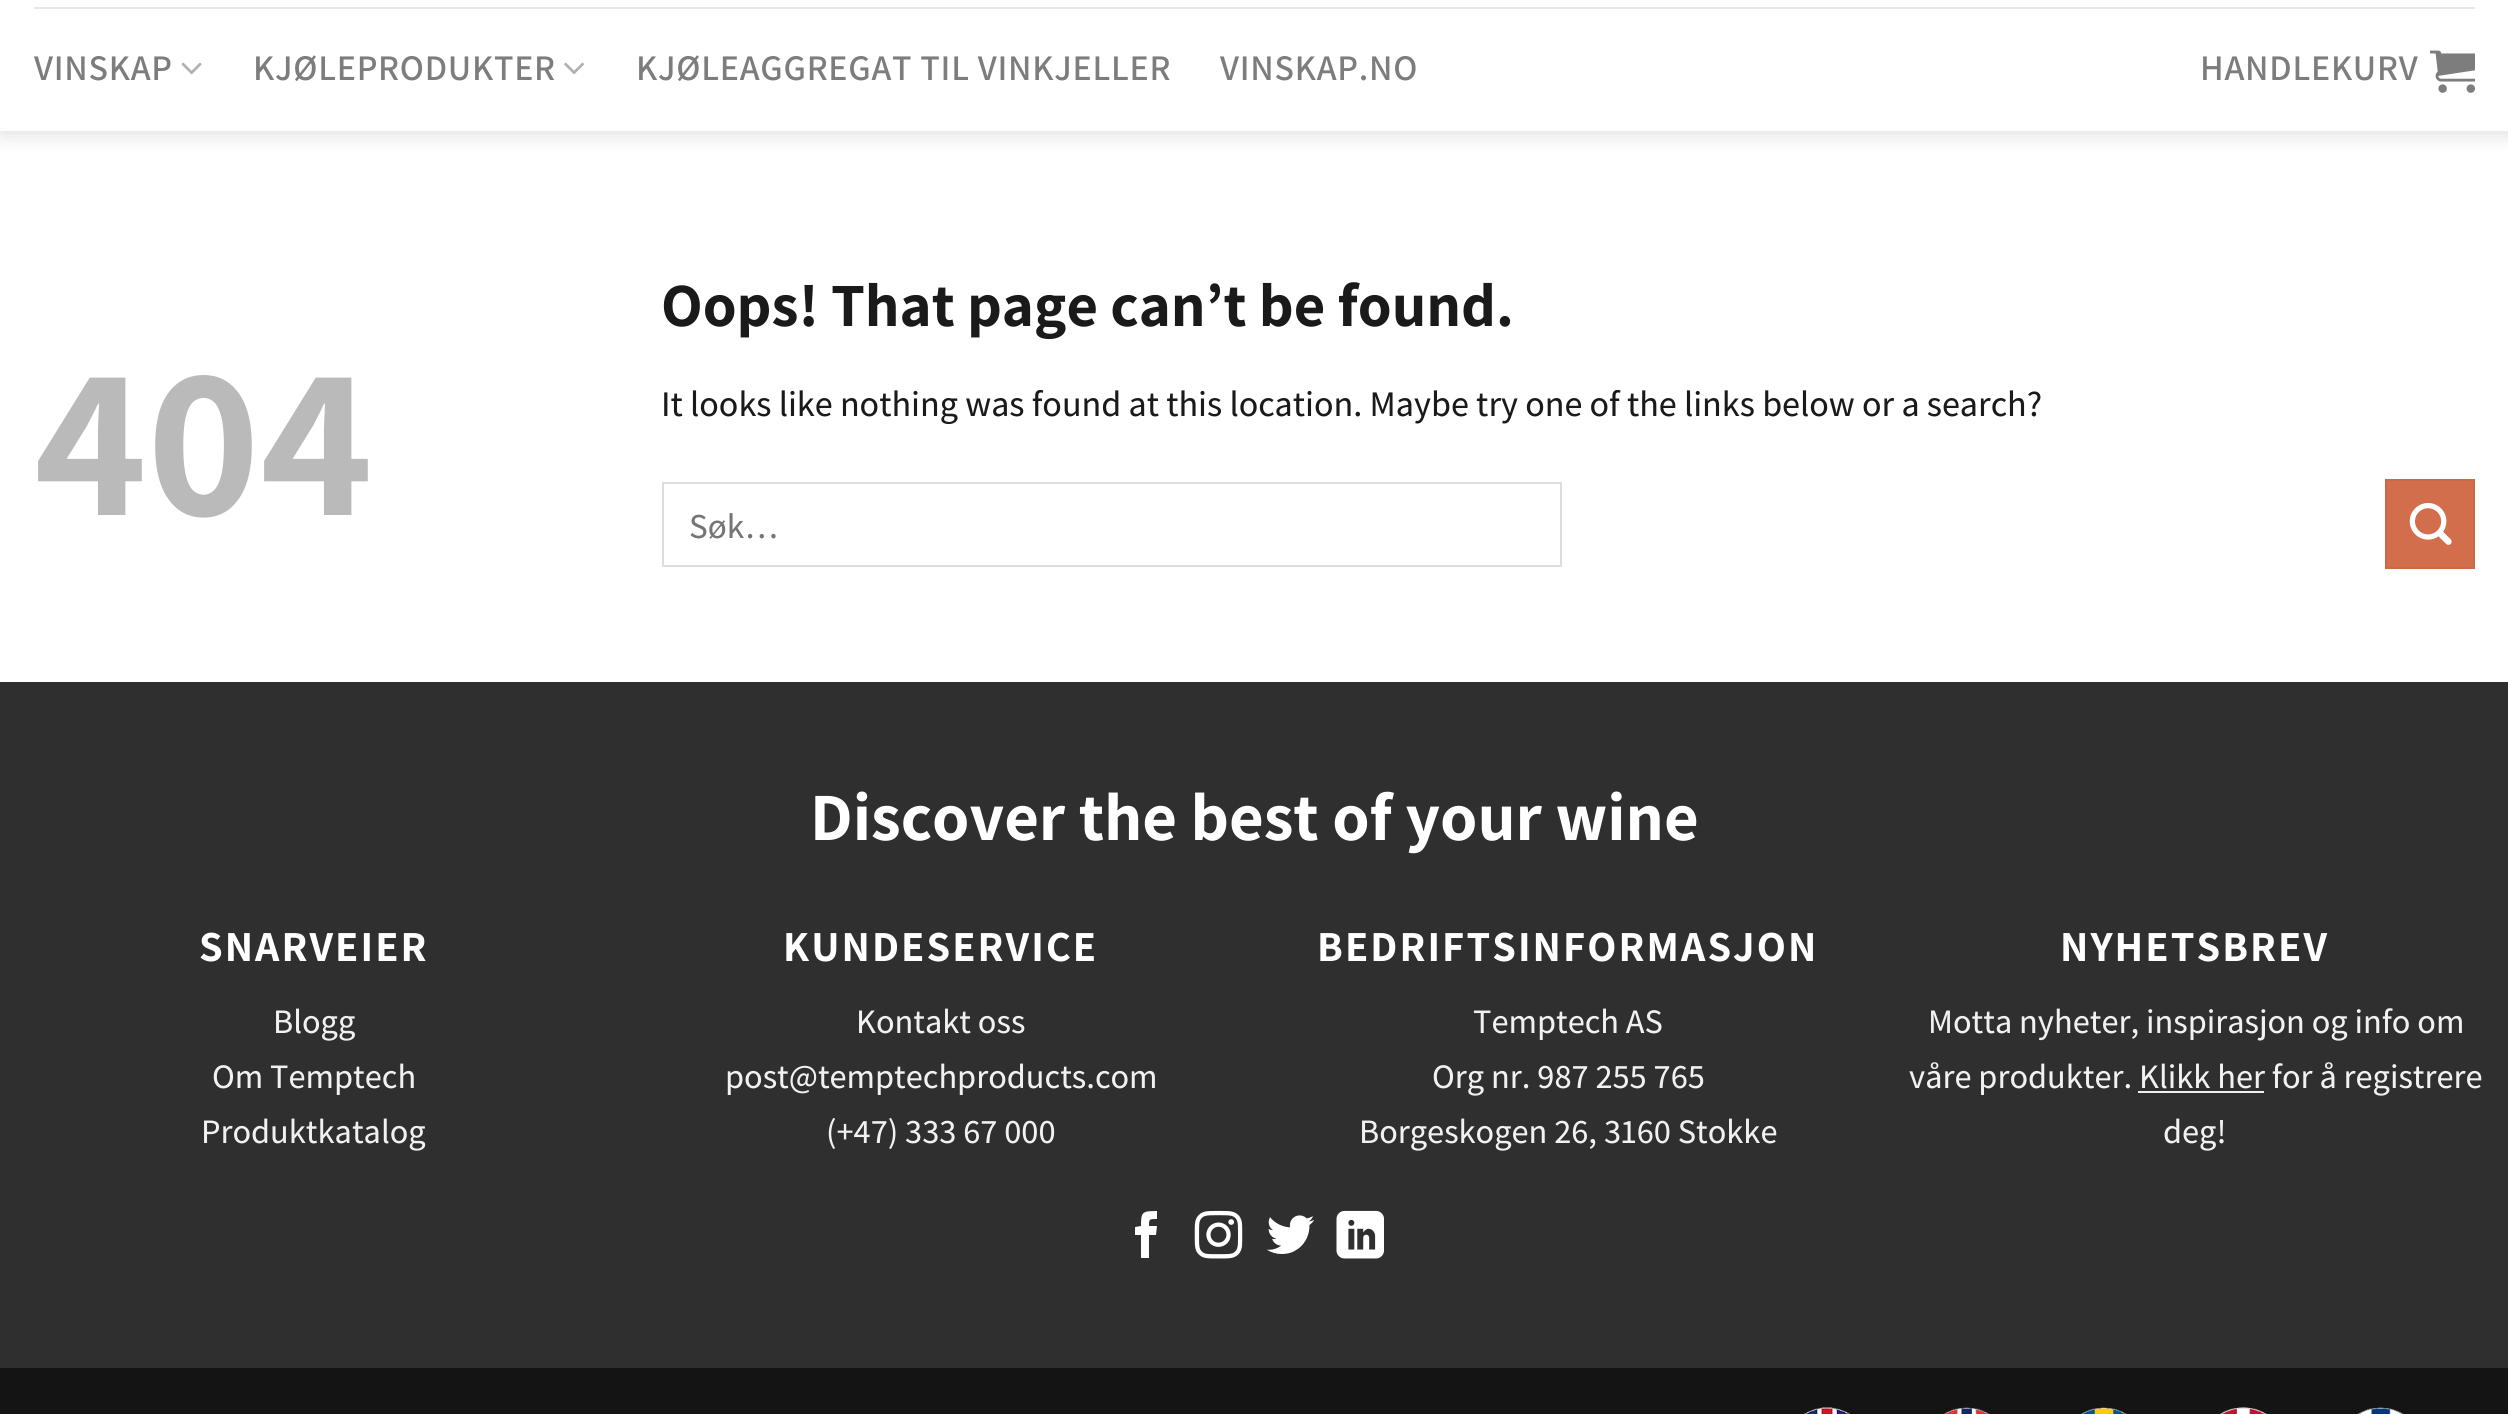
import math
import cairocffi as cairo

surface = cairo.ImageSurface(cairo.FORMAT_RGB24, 2508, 1414)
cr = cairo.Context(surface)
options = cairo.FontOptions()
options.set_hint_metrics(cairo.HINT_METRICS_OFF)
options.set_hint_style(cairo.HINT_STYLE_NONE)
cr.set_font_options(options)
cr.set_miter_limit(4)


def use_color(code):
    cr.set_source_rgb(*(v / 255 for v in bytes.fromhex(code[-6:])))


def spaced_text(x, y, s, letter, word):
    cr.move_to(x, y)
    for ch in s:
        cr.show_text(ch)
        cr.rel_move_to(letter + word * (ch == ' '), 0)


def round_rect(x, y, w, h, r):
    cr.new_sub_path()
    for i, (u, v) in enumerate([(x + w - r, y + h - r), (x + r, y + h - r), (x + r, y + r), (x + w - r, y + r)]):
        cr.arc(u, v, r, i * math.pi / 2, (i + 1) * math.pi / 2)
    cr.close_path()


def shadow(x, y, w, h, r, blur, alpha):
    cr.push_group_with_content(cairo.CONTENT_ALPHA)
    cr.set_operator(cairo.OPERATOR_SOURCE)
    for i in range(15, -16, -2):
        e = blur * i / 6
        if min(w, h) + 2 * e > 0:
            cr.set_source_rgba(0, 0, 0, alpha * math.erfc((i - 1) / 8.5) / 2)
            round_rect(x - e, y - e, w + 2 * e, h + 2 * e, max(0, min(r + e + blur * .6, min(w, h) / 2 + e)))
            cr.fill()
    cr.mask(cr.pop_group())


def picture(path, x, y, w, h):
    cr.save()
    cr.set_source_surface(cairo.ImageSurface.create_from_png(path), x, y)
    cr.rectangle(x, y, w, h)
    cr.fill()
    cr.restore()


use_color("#ffffff")
cr.paint()
use_color("#000000")
shadow(2, -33, 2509, 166, 0, 11, 0.15)
use_color("#ffffff")
cr.rectangle(0, 0, 2508, 131)
cr.fill()
use_color("#e8e8e8")
cr.rectangle(34, 7, 2441, 2)
cr.fill()
cr.select_font_face("Assistant SemiBold")
cr.set_font_size(36)
use_color("#7d7d7d")
spaced_text(34, 80, "VINSKAP", 0.75, 0)
picture("img1.png", 181, 62, 21, 13)
spaced_text(253, 80, "KJØLEPRODUKTER", 0.75, 0)
picture("img2.png", 564, 62, 20, 13)
spaced_text(636, 80, "KJØLEAGGREGAT TIL VINKJELLER", 0.75, 0)
spaced_text(1220, 80, "VINSKAP.NO", 0.75, 0)
spaced_text(2200, 80, "HANDLEKURV", 0.75, 0)
picture("img3.png", 2430, 50, 45, 43)
cr.select_font_face("Assistant", cairo.FONT_SLANT_NORMAL, cairo.FONT_WEIGHT_BOLD)
cr.set_font_size(216)
use_color("#bababa")
cr.move_to(34, 515)
cr.show_text("404")
cr.set_font_size(61.25)
use_color("#1a1a1a")
cr.move_to(661, 326)
cr.show_text("Oops! That page can’t be found.")
cr.select_font_face("Assistant Medium")
cr.set_font_size(36)
cr.move_to(661, 416)
cr.show_text("It looks like nothing was found at this location. Maybe try one of the links below or a search?")
cr.rectangle(663, 483, 898, 83)
use_color("#dddddd")
cr.stroke()
cr.set_font_size(35)
use_color("#757575")
cr.move_to(689, 538)
cr.show_text("Søk…")
use_color("#d26e4b")
cr.rectangle(2386, 480, 88, 88)
cr.fill_preserve()
use_color("#c86947")
cr.stroke()
picture("img4.png", 2409, 503, 43, 42)
use_color("#2f2f2f")
cr.rectangle(0, 682, 2508, 686)
cr.fill()
cr.select_font_face("Assistant", cairo.FONT_SLANT_NORMAL, cairo.FONT_WEIGHT_BOLD)
cr.set_font_size(67.5)
use_color("#ffffff")
cr.move_to(810, 840)
cr.show_text("Discover the best of your wine")
cr.set_font_size(42.75)
spaced_text(199, 961, "SNARVEIER", 2.1, 0)
cr.select_font_face("Assistant Medium")
cr.set_font_size(34.25)
use_color("#f1f1f1")
cr.move_to(273, 1033)
cr.show_text("Blogg")
cr.move_to(212, 1088)
cr.show_text("Om Temptech")
cr.move_to(201, 1143)
cr.show_text("Produktkatalog")
cr.select_font_face("Assistant", cairo.FONT_SLANT_NORMAL, cairo.FONT_WEIGHT_BOLD)
cr.set_font_size(42.75)
use_color("#ffffff")
spaced_text(783, 961, "KUNDESERVICE", 2.1, 0)
cr.select_font_face("Assistant Medium")
cr.set_font_size(34.25)
use_color("#f1f1f1")
cr.move_to(856, 1033)
cr.show_text("Kontakt oss")
cr.move_to(725, 1088)
cr.show_text("post@temptechproducts.com")
cr.move_to(826, 1143)
cr.show_text("(+47) 333 67 000")
cr.select_font_face("Assistant", cairo.FONT_SLANT_NORMAL, cairo.FONT_WEIGHT_BOLD)
cr.set_font_size(42.75)
use_color("#ffffff")
spaced_text(1317, 961, "BEDRIFTSINFORMASJON", 2.1, 0)
cr.select_font_face("Assistant Medium")
cr.set_font_size(34.25)
use_color("#f1f1f1")
cr.move_to(1473, 1033)
cr.show_text("Temptech AS")
cr.move_to(1432, 1088)
cr.show_text("Org nr. 987 255 765")
cr.move_to(1359, 1143)
cr.show_text("Borgeskogen 26, 3160 Stokke")
cr.select_font_face("Assistant", cairo.FONT_SLANT_NORMAL, cairo.FONT_WEIGHT_BOLD)
cr.set_font_size(42.75)
use_color("#ffffff")
spaced_text(2060, 961, "NYHETSBREV", 2.1, 0)
cr.select_font_face("Assistant Medium")
cr.set_font_size(34.25)
use_color("#f1f1f1")
cr.move_to(1928, 1033)
cr.show_text("Motta nyheter, inspirasjon og info om")
cr.move_to(1909, 1088)
cr.show_text("våre produkter. Klikk her for å registrere")
cr.rectangle(2138, 1091, 126, 2)
cr.fill()
cr.move_to(2163, 1143)
cr.show_text("deg!")
use_color("#ffffff")
cr.new_path()
cr.move_to(1149, 1258)
cr.line_to(1141, 1258)
cr.line_to(1141, 1235)
cr.line_to(1135, 1235)
cr.line_to(1135, 1227)
cr.line_to(1141, 1226)
cr.curve_to(1141, 1212, 1142, 1211, 1157, 1211)
cr.line_to(1157, 1219)
cr.curve_to(1149, 1219, 1149, 1219, 1149, 1226)
cr.line_to(1157, 1226)
cr.line_to(1156, 1235)
cr.line_to(1149, 1235)
cr.close_path()
cr.fill()
picture("img5.png", 1194, 1210, 49, 49)
picture("img6.png", 1267, 1215, 48, 39)
picture("img7.png", 1336, 1210, 48, 49)
use_color("#141414")
cr.rectangle(0, 1368, 2508, 46)
cr.fill()
picture("img8.png", 1804, 1407, 46, 7)
picture("img9.png", 1943, 1407, 47, 7)
picture("img10.png", 2080, 1407, 47, 7)
picture("img11.png", 2220, 1407, 47, 7)
picture("img12.png", 2357, 1407, 47, 7)
surface.write_to_png("result.png")
